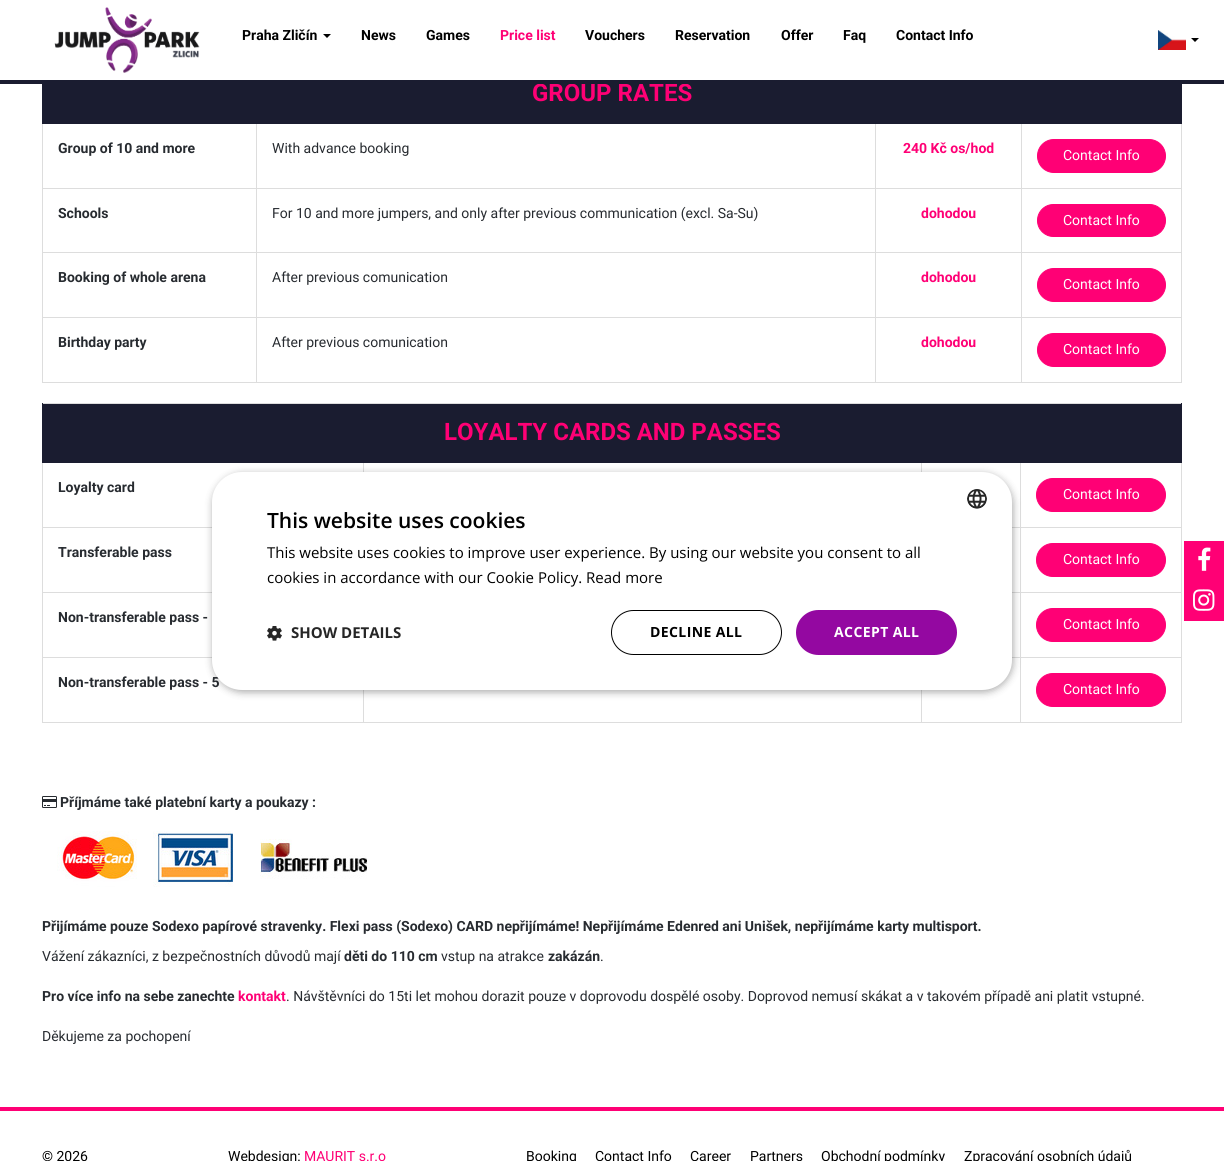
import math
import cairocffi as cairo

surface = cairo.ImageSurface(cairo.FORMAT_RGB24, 1224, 1161)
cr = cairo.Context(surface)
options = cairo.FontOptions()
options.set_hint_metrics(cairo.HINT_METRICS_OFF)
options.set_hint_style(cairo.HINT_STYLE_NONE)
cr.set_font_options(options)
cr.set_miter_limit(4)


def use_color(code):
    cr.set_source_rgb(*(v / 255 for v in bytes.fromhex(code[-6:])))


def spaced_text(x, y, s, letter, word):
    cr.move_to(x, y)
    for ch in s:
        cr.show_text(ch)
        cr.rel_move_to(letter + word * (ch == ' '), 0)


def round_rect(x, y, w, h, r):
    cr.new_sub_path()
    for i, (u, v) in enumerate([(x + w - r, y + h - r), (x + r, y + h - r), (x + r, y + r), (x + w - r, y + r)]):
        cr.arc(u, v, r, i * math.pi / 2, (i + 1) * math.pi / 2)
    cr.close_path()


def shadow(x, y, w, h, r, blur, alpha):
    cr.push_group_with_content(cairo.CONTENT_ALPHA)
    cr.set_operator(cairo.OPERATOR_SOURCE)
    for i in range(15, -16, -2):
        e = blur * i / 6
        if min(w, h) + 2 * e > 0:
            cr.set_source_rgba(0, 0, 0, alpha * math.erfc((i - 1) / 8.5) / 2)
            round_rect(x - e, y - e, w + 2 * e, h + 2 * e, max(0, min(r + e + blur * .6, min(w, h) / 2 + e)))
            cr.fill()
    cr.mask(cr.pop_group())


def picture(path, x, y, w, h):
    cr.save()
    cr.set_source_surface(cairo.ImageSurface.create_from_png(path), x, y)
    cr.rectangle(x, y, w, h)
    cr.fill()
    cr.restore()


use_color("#ffffff")
cr.paint()
use_color("#1a1c30")
cr.rectangle(43, 84, 1138, 38)
cr.fill()
cr.select_font_face("Roboto", cairo.FONT_SLANT_NORMAL, cairo.FONT_WEIGHT_BOLD)
cr.set_font_size(24)
use_color("#ff0075")
cr.move_to(532, 101)
cr.show_text("GROUP RATES")
use_color("#1a1c30")
cr.rectangle(0, 80, 1224, 4)
cr.fill()
picture("img1.png", 54, 7, 146, 66)
picture("img2.png", 1158, 30, 28, 20)
use_color("#000000")
cr.new_path()
cr.move_to(1191, 38)
cr.line_to(1199, 38)
cr.line_to(1195, 42)
cr.close_path()
cr.fill()
cr.set_font_size(14)
cr.move_to(242, 40)
cr.show_text("Praha Zličín")
cr.new_path()
cr.move_to(323, 34)
cr.line_to(331, 34)
cr.line_to(327, 38)
cr.close_path()
cr.fill()
cr.move_to(361, 40)
cr.show_text("News")
cr.move_to(426, 40)
cr.show_text("Games")
use_color("#ff0075")
cr.move_to(500, 40)
cr.show_text("Price list")
use_color("#000000")
cr.move_to(585, 40)
cr.show_text("Vouchers")
cr.move_to(675, 40)
cr.show_text("Reservation")
cr.move_to(781, 40)
cr.show_text("Offer")
cr.move_to(843, 40)
cr.show_text("Faq")
cr.move_to(896, 40)
cr.show_text("Contact Info")
use_color("#dddddd")
cr.rectangle(1181, 124, 1, 259)
cr.fill()
cr.rectangle(42, 382, 1140, 1)
cr.fill()
cr.rectangle(42, 124, 1, 259)
cr.fill()
use_color("#1a1c30")
cr.rectangle(1181, 84, 1, 39)
cr.fill()
cr.rectangle(42, 84, 1, 39)
cr.fill()
use_color("#dddddd")
cr.rectangle(1021, 188, 161, 1)
cr.fill()
cr.rectangle(1021, 252, 161, 1)
cr.fill()
cr.rectangle(1021, 317, 161, 1)
cr.fill()
cr.rectangle(1021, 317, 1, 66)
cr.fill()
cr.rectangle(875, 317, 147, 1)
cr.fill()
cr.rectangle(1021, 252, 1, 66)
cr.fill()
cr.rectangle(875, 252, 147, 1)
cr.fill()
cr.rectangle(1021, 188, 1, 65)
cr.fill()
cr.rectangle(875, 188, 147, 1)
cr.fill()
cr.rectangle(875, 317, 1, 66)
cr.fill()
cr.rectangle(256, 317, 620, 1)
cr.fill()
cr.rectangle(875, 252, 1, 66)
cr.fill()
cr.rectangle(256, 252, 620, 1)
cr.fill()
cr.rectangle(875, 188, 1, 65)
cr.fill()
cr.rectangle(256, 188, 620, 1)
cr.fill()
cr.rectangle(256, 317, 1, 66)
cr.fill()
cr.rectangle(42, 317, 215, 1)
cr.fill()
cr.rectangle(256, 252, 1, 66)
cr.fill()
cr.rectangle(42, 252, 215, 1)
cr.fill()
cr.rectangle(256, 188, 1, 65)
cr.fill()
cr.rectangle(42, 188, 215, 1)
cr.fill()
cr.rectangle(256, 122, 1, 67)
cr.fill()
cr.rectangle(875, 122, 1, 67)
cr.fill()
cr.rectangle(1021, 122, 1, 67)
cr.fill()
use_color("#1a1c30")
cr.rectangle(42, 122, 1140, 2)
cr.fill()
use_color("#272b30")
cr.move_to(58, 153)
cr.show_text("Group of 10 and more")
cr.select_font_face("Roboto")
cr.move_to(272, 153)
cr.show_text("With advance booking")
cr.select_font_face("Roboto", cairo.FONT_SLANT_NORMAL, cairo.FONT_WEIGHT_BOLD)
use_color("#ff0075")
cr.move_to(903, 153)
cr.show_text("240 Kč os/hod")
round_rect(1037.5, 139.5, 128, 33, 16.5)
cr.fill_preserve()
cr.set_line_width(1)
cr.stroke()
cr.select_font_face("Roboto")
use_color("#ffffff")
cr.move_to(1063, 160)
cr.show_text("Contact Info")
cr.select_font_face("Roboto", cairo.FONT_SLANT_NORMAL, cairo.FONT_WEIGHT_BOLD)
use_color("#272b30")
cr.move_to(58, 218)
cr.show_text("Schools")
cr.select_font_face("Roboto")
cr.move_to(272, 218)
cr.show_text("For 10 and more jumpers, and only after previous communication (excl. Sa-Su)")
cr.select_font_face("Roboto", cairo.FONT_SLANT_NORMAL, cairo.FONT_WEIGHT_BOLD)
use_color("#ff0075")
cr.move_to(921, 218)
cr.show_text("dohodou")
round_rect(1037.5, 204.5, 128, 32, 16)
cr.fill_preserve()
cr.stroke()
cr.select_font_face("Roboto")
use_color("#ffffff")
cr.move_to(1063, 225)
cr.show_text("Contact Info")
cr.select_font_face("Roboto", cairo.FONT_SLANT_NORMAL, cairo.FONT_WEIGHT_BOLD)
use_color("#272b30")
cr.move_to(58, 282)
cr.show_text("Booking of whole arena")
cr.select_font_face("Roboto")
cr.move_to(272, 282)
cr.show_text("After previous comunication")
cr.select_font_face("Roboto", cairo.FONT_SLANT_NORMAL, cairo.FONT_WEIGHT_BOLD)
use_color("#ff0075")
cr.move_to(921, 282)
cr.show_text("dohodou")
round_rect(1037.5, 268.5, 128, 33, 16.5)
cr.fill_preserve()
cr.stroke()
cr.select_font_face("Roboto")
use_color("#ffffff")
cr.move_to(1063, 289)
cr.show_text("Contact Info")
cr.select_font_face("Roboto", cairo.FONT_SLANT_NORMAL, cairo.FONT_WEIGHT_BOLD)
use_color("#272b30")
cr.move_to(58, 347)
cr.show_text("Birthday party")
cr.select_font_face("Roboto")
cr.move_to(272, 347)
cr.show_text("After previous comunication")
cr.select_font_face("Roboto", cairo.FONT_SLANT_NORMAL, cairo.FONT_WEIGHT_BOLD)
use_color("#ff0075")
cr.move_to(921, 347)
cr.show_text("dohodou")
round_rect(1037.5, 333.5, 128, 33, 16.5)
cr.fill_preserve()
cr.stroke()
cr.select_font_face("Roboto")
use_color("#ffffff")
cr.move_to(1063, 354)
cr.show_text("Contact Info")
use_color("#dddddd")
cr.rectangle(42, 403, 1140, 1)
cr.fill()
cr.rectangle(1181, 463, 1, 260)
cr.fill()
cr.rectangle(42, 722, 1140, 1)
cr.fill()
cr.rectangle(42, 463, 1, 260)
cr.fill()
use_color("#1a1c30")
cr.rectangle(43, 404, 1138, 57)
cr.fill()
cr.rectangle(1181, 403, 1, 60)
cr.fill()
cr.rectangle(42, 403, 1, 60)
cr.fill()
use_color("#dddddd")
cr.rectangle(363, 462, 1, 10)
cr.fill()
cr.rectangle(921, 462, 1, 10)
cr.fill()
cr.rectangle(1020, 527, 162, 1)
cr.fill()
cr.rectangle(1020, 592, 162, 1)
cr.fill()
cr.rectangle(1020, 657, 162, 1)
cr.fill()
cr.rectangle(1020, 657, 1, 66)
cr.fill()
cr.rectangle(1012, 657, 9, 1)
cr.fill()
cr.rectangle(1020, 592, 1, 66)
cr.fill()
cr.rectangle(1012, 592, 9, 1)
cr.fill()
cr.rectangle(1020, 527, 1, 66)
cr.fill()
cr.rectangle(1012, 527, 9, 1)
cr.fill()
cr.rectangle(1020, 462, 1, 66)
cr.fill()
use_color("#1a1c30")
cr.rectangle(42, 461, 1140, 2)
cr.fill()
cr.select_font_face("Roboto", cairo.FONT_SLANT_NORMAL, cairo.FONT_WEIGHT_BOLD)
cr.set_font_size(24)
use_color("#ff0075")
cr.move_to(444, 440)
cr.show_text("LOYALTY CARDS AND PASSES")
cr.set_font_size(14)
use_color("#272b30")
cr.move_to(58, 492)
cr.show_text("Loyalty card")
use_color("#ff0075")
round_rect(1036.5, 478.5, 129, 33, 16.5)
cr.fill_preserve()
cr.stroke()
cr.select_font_face("Roboto")
use_color("#ffffff")
cr.move_to(1063, 499)
cr.show_text("Contact Info")
use_color("#dddddd")
cr.rectangle(42, 527, 170, 1)
cr.fill()
cr.select_font_face("Roboto", cairo.FONT_SLANT_NORMAL, cairo.FONT_WEIGHT_BOLD)
use_color("#272b30")
cr.move_to(58, 557)
cr.show_text("Transferable pass")
use_color("#ff0075")
round_rect(1036.5, 543.5, 129, 33, 16.5)
cr.fill_preserve()
cr.stroke()
cr.select_font_face("Roboto")
use_color("#ffffff")
cr.move_to(1063, 564)
cr.show_text("Contact Info")
use_color("#dddddd")
cr.rectangle(42, 592, 170, 1)
cr.fill()
cr.select_font_face("Roboto", cairo.FONT_SLANT_NORMAL, cairo.FONT_WEIGHT_BOLD)
use_color("#272b30")
cr.move_to(58, 622)
cr.show_text("Non-transferable pass -")
use_color("#ff0075")
round_rect(1036.5, 608.5, 129, 33, 16.5)
cr.fill_preserve()
cr.stroke()
cr.select_font_face("Roboto")
use_color("#ffffff")
cr.move_to(1063, 629)
cr.show_text("Contact Info")
use_color("#dddddd")
cr.rectangle(42, 657, 170, 1)
cr.fill()
cr.select_font_face("Roboto", cairo.FONT_SLANT_NORMAL, cairo.FONT_WEIGHT_BOLD)
use_color("#272b30")
cr.move_to(58, 687)
cr.show_text("Non-transferable pass - 5")
use_color("#dddddd")
cr.rectangle(363, 690, 1, 33)
cr.fill()
cr.rectangle(921, 690, 1, 33)
cr.fill()
use_color("#ff0075")
round_rect(1036.5, 673.5, 129, 33, 16.5)
cr.fill_preserve()
cr.stroke()
cr.select_font_face("Roboto")
use_color("#ffffff")
cr.move_to(1063, 694)
cr.show_text("Contact Info")
picture("img3.png", 42, 796, 15, 12)
cr.select_font_face("Roboto", cairo.FONT_SLANT_NORMAL, cairo.FONT_WEIGHT_BOLD)
use_color("#272b30")
cr.move_to(60, 807)
cr.show_text("Příjmáme také platební karty a poukazy :")
picture("img4.png", 57, 831, 310, 56)
cr.move_to(42, 931)
cr.show_text("Přijímáme pouze Sodexo papírové stravenky. Flexi pass (Sodexo) CARD nepřijímáme! Nepřijímáme Edenred ani Unišek, nepřijímáme karty multisport.")
cr.select_font_face("Roboto")
cr.move_to(42, 961)
cr.show_text("Vážení zákazníci, z bezpečnostních důvodů mají")
cr.select_font_face("Roboto", cairo.FONT_SLANT_NORMAL, cairo.FONT_WEIGHT_BOLD)
cr.move_to(344, 961)
cr.show_text("děti do 110 cm")
cr.select_font_face("Roboto")
cr.move_to(441, 961)
cr.show_text("vstup na atrakce")
cr.select_font_face("Roboto", cairo.FONT_SLANT_NORMAL, cairo.FONT_WEIGHT_BOLD)
cr.move_to(548, 961)
cr.show_text("zakázán")
cr.select_font_face("Roboto")
cr.move_to(600, 961)
cr.show_text(".")
cr.select_font_face("Roboto", cairo.FONT_SLANT_NORMAL, cairo.FONT_WEIGHT_BOLD)
cr.move_to(42, 1001)
cr.show_text("Pro více info na sebe zanechte")
use_color("#ff0075")
cr.move_to(238, 1001)
cr.show_text("kontakt")
cr.select_font_face("Roboto")
use_color("#272b30")
cr.move_to(286, 1001)
cr.show_text(". Návštěvníci do 15ti let mohou dorazit pouze v doprovodu dospělé osoby. Doprovod nemusí skákat a v takovém případě ani platit vstupné.")
cr.move_to(42, 1041)
cr.show_text("Děkujeme za pochopení")
use_color("#000000")
shadow(213, 474, 800, 218, 30, 4, 0.35)
use_color("#ffffff")
round_rect(212, 472, 800, 218, 30)
cr.fill()
picture("img5.png", 967, 489, 20, 20)
cr.select_font_face("Open Sans SemiBold")
cr.set_font_size(21)
use_color("#000000")
cr.move_to(267, 528)
cr.show_text("This website uses cookies")
cr.select_font_face("Open Sans")
cr.set_font_size(15)
cr.move_to(267, 558)
cr.show_text("This website uses cookies to improve user experience. By using our website you consent to all")
cr.move_to(267, 583)
cr.show_text("cookies in accordance with our Cookie Policy. Read more")
picture("img6.png", 267, 626, 15, 15)
cr.select_font_face("Open Sans", cairo.FONT_SLANT_NORMAL, cairo.FONT_WEIGHT_BOLD)
use_color("#262626")
cr.move_to(291, 638)
cr.show_text("SHOW DETAILS")
round_rect(611.5, 610.5, 170, 44, 22)
use_color("#000000")
cr.stroke()
cr.set_font_size(14)
spaced_text(650, 637, "DECLINE ALL", 0.4, 0)
use_color("#9408a1")
round_rect(796, 610, 161, 45, 22.5)
cr.fill()
use_color("#ffffff")
spaced_text(834, 637, "ACCEPT ALL", 0.4, 0)
use_color("#ff0075")
cr.rectangle(1184, 541, 40, 80)
cr.fill()
picture("img7.png", 1198, 547, 13, 24)
picture("img8.png", 1193, 589, 22, 22)
cr.rectangle(0, 1107, 1224, 4)
cr.fill()
cr.select_font_face("Roboto")
use_color("#000000")
cr.move_to(42, 1161)
cr.show_text("© 2026")
cr.move_to(228, 1161)
cr.show_text("Webdesign:")
use_color("#ff0075")
cr.move_to(304, 1161)
cr.show_text("MAURIT s.r.o")
use_color("#000000")
cr.move_to(526, 1161)
cr.show_text("Booking")
cr.move_to(595, 1161)
cr.show_text("Contact Info")
cr.move_to(690, 1161)
cr.show_text("Career")
cr.move_to(750, 1161)
cr.show_text("Partners")
cr.move_to(821, 1161)
cr.show_text("Obchodní podmínky")
cr.move_to(964, 1161)
cr.show_text("Zpracování osobních údajů")
surface.write_to_png("result.png")
